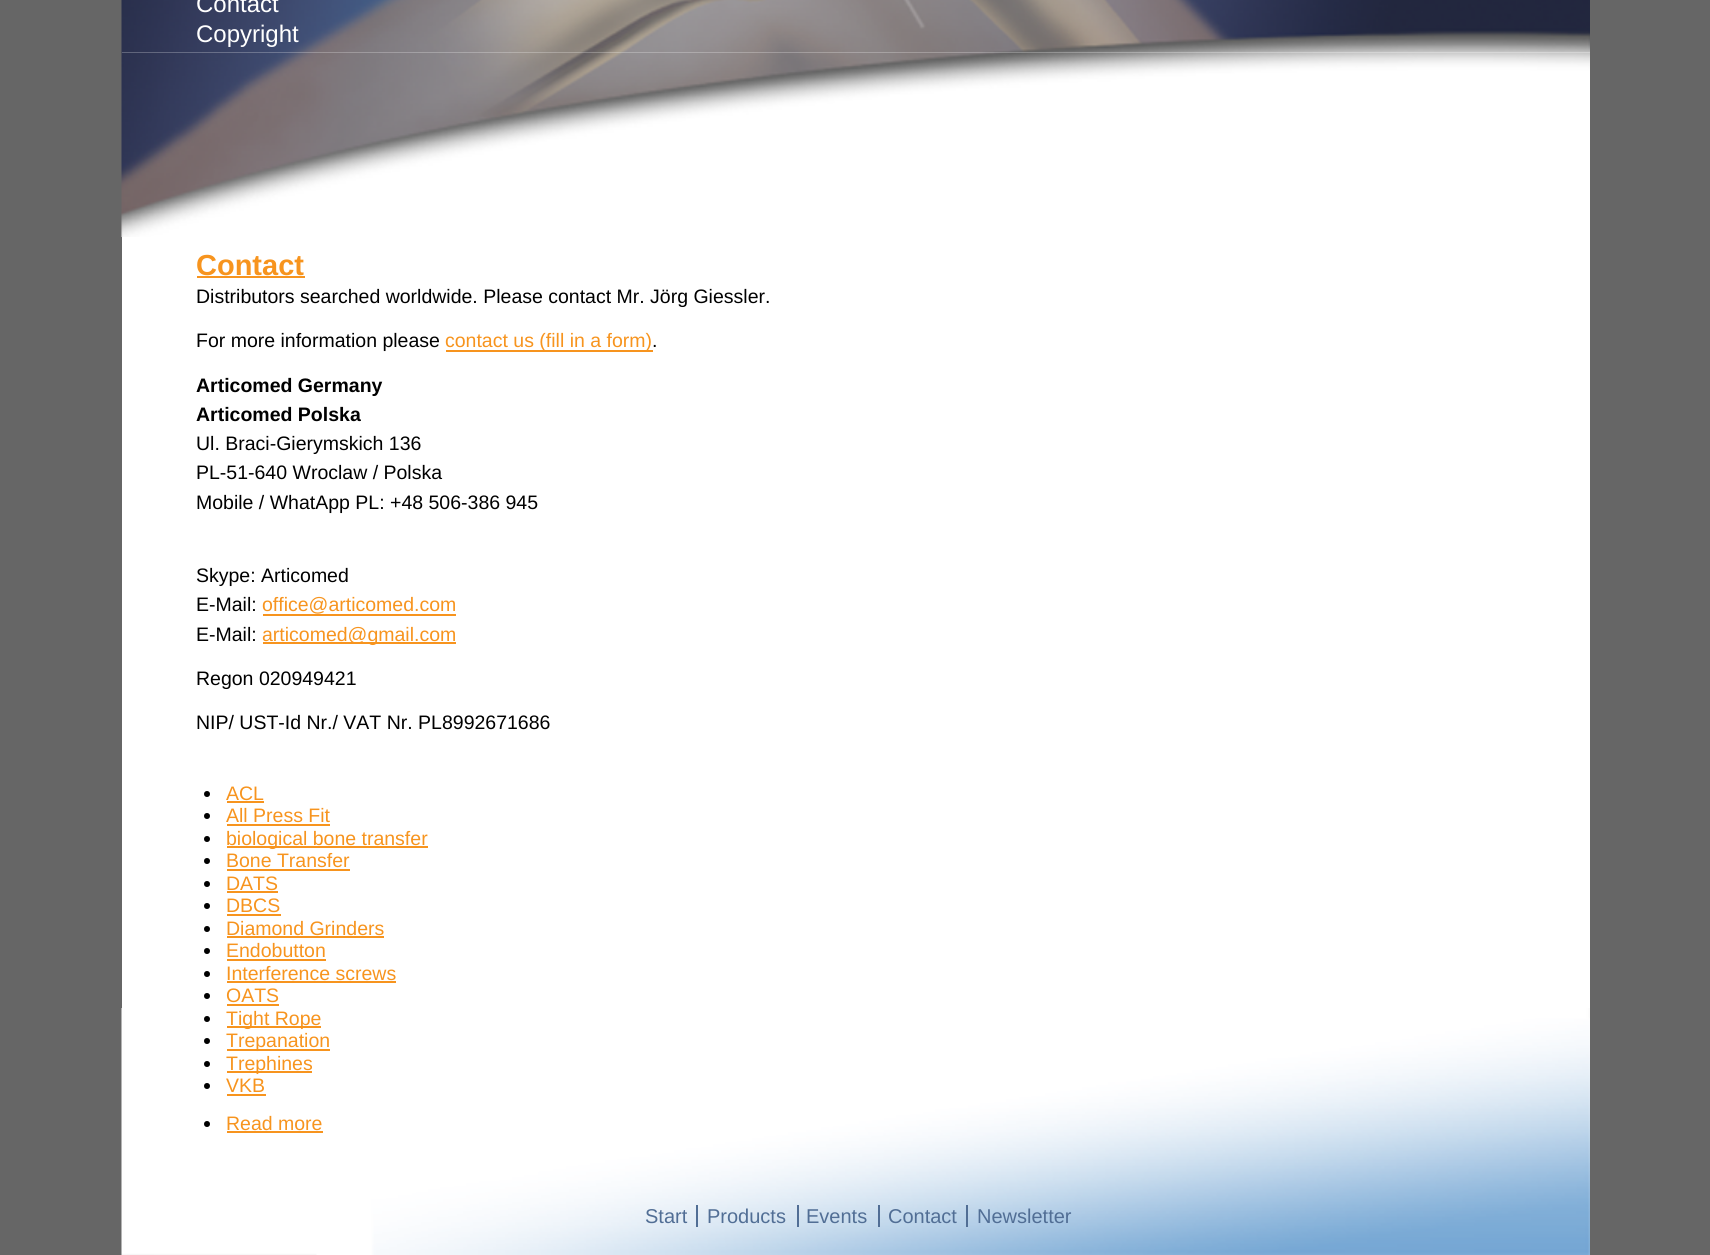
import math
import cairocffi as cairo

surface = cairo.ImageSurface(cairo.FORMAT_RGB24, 1710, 1255)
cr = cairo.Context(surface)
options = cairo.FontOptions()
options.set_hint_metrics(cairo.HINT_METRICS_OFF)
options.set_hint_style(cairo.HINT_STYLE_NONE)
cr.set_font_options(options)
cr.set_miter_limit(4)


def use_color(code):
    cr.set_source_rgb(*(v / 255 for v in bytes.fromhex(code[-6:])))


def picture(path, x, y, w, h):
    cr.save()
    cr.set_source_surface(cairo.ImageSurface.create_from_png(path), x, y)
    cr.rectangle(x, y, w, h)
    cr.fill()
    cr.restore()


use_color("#666666")
cr.paint()
use_color("#ffffff")
cr.rectangle(122, 52, 1468, 956)
cr.fill()
picture("img1.png", 121, 1008, 1469, 247)
picture("img2.png", 121, 0, 1469, 53)
cr.select_font_face("Liberation Sans")
cr.set_font_size(24)
cr.move_to(196, 12)
cr.show_text("Contact")
cr.move_to(196, 42)
cr.show_text("Copyright")
picture("img3.png", 121, 52, 1469, 185)
cr.select_font_face("Liberation Sans", cairo.FONT_SLANT_NORMAL, cairo.FONT_WEIGHT_BOLD)
cr.set_font_size(29)
use_color("#f7941e")
cr.move_to(196, 275)
cr.show_text("Contact")
cr.rectangle(197, 276, 108, 2)
cr.fill()
cr.select_font_face("Liberation Sans")
cr.set_font_size(19.5)
use_color("#000000")
cr.move_to(196, 303)
cr.show_text("Distributors searched worldwide. Please contact Mr. Jörg Giessler.")
cr.move_to(196, 347)
cr.show_text("For more information please")
use_color("#f7941e")
cr.rectangle(446, 350, 207, 2)
cr.fill()
cr.move_to(445, 347)
cr.show_text("contact us (fill in a form)")
use_color("#000000")
cr.move_to(652, 347)
cr.show_text(".")
cr.select_font_face("Liberation Sans", cairo.FONT_SLANT_NORMAL, cairo.FONT_WEIGHT_BOLD)
cr.move_to(196, 392)
cr.show_text("Articomed Germany")
cr.move_to(196, 421)
cr.show_text("Articomed Polska")
cr.select_font_face("Liberation Sans")
cr.move_to(196, 450)
cr.show_text("Ul. Braci-Gierymskich 136")
cr.move_to(196, 479)
cr.show_text("PL-51-640 Wroclaw / Polska")
cr.move_to(196, 509)
cr.show_text("Mobile / WhatApp PL: +48 506-386 945")
cr.move_to(196, 582)
cr.show_text("Skype: Articomed")
cr.move_to(196, 611)
cr.show_text("E-Mail:")
use_color("#f7941e")
cr.move_to(262, 611)
cr.show_text("office@articomed.com")
cr.rectangle(263, 614, 193, 2)
cr.fill()
use_color("#000000")
cr.move_to(196, 641)
cr.show_text("E-Mail:")
use_color("#f7941e")
cr.rectangle(263, 642, 193, 2)
cr.fill()
cr.move_to(262, 641)
cr.show_text("articomed@gmail.com")
use_color("#000000")
cr.move_to(196, 685)
cr.show_text("Regon 020949421")
cr.move_to(196, 729)
cr.show_text("NIP/ UST-Id Nr./ VAT Nr. PL8992671686")
cr.new_path()
cr.arc(207, 794, 3, 0, 2 * math.pi)
cr.fill()
use_color("#f7941e")
cr.move_to(226, 800)
cr.show_text("ACL")
cr.rectangle(227, 801, 37, 2)
cr.fill()
use_color("#000000")
cr.arc(207, 816, 3, 0, 2 * math.pi)
cr.fill()
use_color("#f7941e")
cr.move_to(226, 822)
cr.show_text("All Press Fit")
cr.rectangle(227, 824, 103, 2)
cr.fill()
use_color("#000000")
cr.arc(207, 839, 3, 0, 2 * math.pi)
cr.fill()
use_color("#f7941e")
cr.rectangle(227, 846, 201, 2)
cr.fill()
cr.move_to(226, 845)
cr.show_text("biological bone transfer")
use_color("#000000")
cr.new_path()
cr.arc(207, 861, 3, 0, 2 * math.pi)
cr.fill()
use_color("#f7941e")
cr.move_to(226, 867)
cr.show_text("Bone Transfer")
cr.rectangle(227, 869, 123, 2)
cr.fill()
use_color("#000000")
cr.arc(207, 884, 3, 0, 2 * math.pi)
cr.fill()
use_color("#f7941e")
cr.move_to(226, 890)
cr.show_text("DATS")
cr.rectangle(227, 891, 51, 2)
cr.fill()
use_color("#000000")
cr.arc(207, 906, 3, 0, 2 * math.pi)
cr.fill()
use_color("#f7941e")
cr.move_to(226, 912)
cr.show_text("DBCS")
cr.rectangle(227, 914, 54, 2)
cr.fill()
use_color("#000000")
cr.arc(207, 929, 3, 0, 2 * math.pi)
cr.fill()
use_color("#f7941e")
cr.move_to(226, 935)
cr.show_text("Diamond Grinders")
cr.rectangle(227, 936, 157, 2)
cr.fill()
use_color("#000000")
cr.arc(207, 951, 3, 0, 2 * math.pi)
cr.fill()
use_color("#f7941e")
cr.move_to(226, 957)
cr.show_text("Endobutton")
cr.rectangle(227, 959, 99, 2)
cr.fill()
use_color("#000000")
cr.arc(207, 974, 3, 0, 2 * math.pi)
cr.fill()
use_color("#f7941e")
cr.move_to(226, 980)
cr.show_text("Interference screws")
cr.rectangle(227, 981, 169, 2)
cr.fill()
use_color("#000000")
cr.arc(207, 996, 3, 0, 2 * math.pi)
cr.fill()
use_color("#f7941e")
cr.move_to(226, 1002)
cr.show_text("OATS")
cr.rectangle(227, 1004, 52, 2)
cr.fill()
use_color("#000000")
cr.arc(207, 1019, 3, 0, 2 * math.pi)
cr.fill()
use_color("#f7941e")
cr.rectangle(227, 1026, 94, 2)
cr.fill()
cr.move_to(226, 1025)
cr.show_text("Tight Rope")
use_color("#000000")
cr.new_path()
cr.arc(207, 1041, 3, 0, 2 * math.pi)
cr.fill()
use_color("#f7941e")
cr.rectangle(227, 1049, 103, 2)
cr.fill()
cr.move_to(226, 1047)
cr.show_text("Trepanation")
use_color("#000000")
cr.new_path()
cr.arc(207, 1064, 3, 0, 2 * math.pi)
cr.fill()
use_color("#f7941e")
cr.rectangle(227, 1071, 85, 2)
cr.fill()
cr.move_to(226, 1070)
cr.show_text("Trephines")
use_color("#000000")
cr.new_path()
cr.arc(207, 1086, 3, 0, 2 * math.pi)
cr.fill()
use_color("#f7941e")
cr.move_to(226, 1092)
cr.show_text("VKB")
cr.rectangle(227, 1094, 39, 2)
cr.fill()
use_color("#000000")
cr.arc(207, 1124, 3, 0, 2 * math.pi)
cr.fill()
use_color("#f7941e")
cr.move_to(226, 1130)
cr.show_text("Read more")
cr.rectangle(227, 1131, 96, 2)
cr.fill()
cr.set_font_size(20)
use_color("#516e95")
cr.move_to(645, 1223)
cr.show_text("Start")
cr.rectangle(696, 1205, 2, 22)
cr.fill()
cr.move_to(707, 1223)
cr.show_text("Products")
cr.rectangle(797, 1205, 2, 22)
cr.fill()
cr.move_to(806, 1223)
cr.show_text("Events")
cr.rectangle(878, 1205, 2, 22)
cr.fill()
cr.move_to(888, 1223)
cr.show_text("Contact")
cr.rectangle(966, 1205, 2, 22)
cr.fill()
cr.move_to(977, 1223)
cr.show_text("Newsletter")
surface.write_to_png("result.png")
